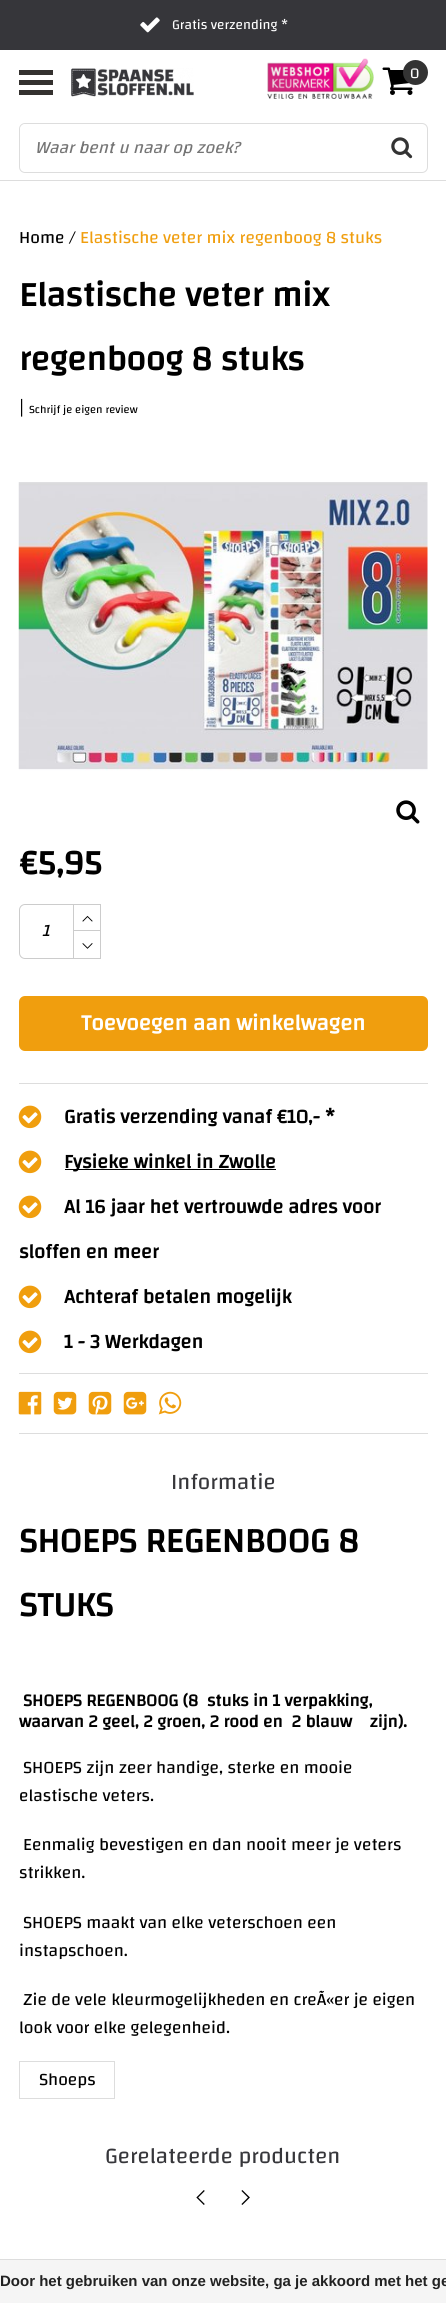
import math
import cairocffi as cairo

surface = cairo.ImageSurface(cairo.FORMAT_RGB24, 446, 2303)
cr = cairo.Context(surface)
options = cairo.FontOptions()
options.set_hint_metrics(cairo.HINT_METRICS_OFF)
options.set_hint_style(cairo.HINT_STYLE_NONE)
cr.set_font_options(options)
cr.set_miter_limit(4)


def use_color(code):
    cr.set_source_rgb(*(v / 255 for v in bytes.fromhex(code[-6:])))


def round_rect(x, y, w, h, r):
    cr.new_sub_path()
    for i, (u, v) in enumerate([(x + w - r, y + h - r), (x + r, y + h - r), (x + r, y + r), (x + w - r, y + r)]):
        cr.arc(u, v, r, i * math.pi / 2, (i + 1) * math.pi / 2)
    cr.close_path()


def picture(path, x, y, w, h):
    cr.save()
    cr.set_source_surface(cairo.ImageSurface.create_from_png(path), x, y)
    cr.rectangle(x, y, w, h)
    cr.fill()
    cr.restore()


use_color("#ffffff")
cr.paint()
use_color("#36363a")
cr.rectangle(0, 0, 446, 50)
cr.fill()
picture("img1.png", 140, 17, 20, 16)
cr.select_font_face("Changa")
cr.set_font_size(13.75)
use_color("#ffffff")
cr.move_to(172, 29)
cr.show_text("Gratis verzending *")
use_color("#dddddd")
cr.rectangle(0, 180, 446, 1)
cr.fill()
use_color("#34312f")
cr.rectangle(19, 70, 34, 5)
cr.fill()
cr.rectangle(19, 80, 34, 5)
cr.fill()
cr.rectangle(19, 90, 34, 5)
cr.fill()
picture("img2.png", 71, 68, 123, 29)
picture("img3.png", 382, 67, 31, 28)
use_color("#333333")
cr.arc(415.5, 72.5, 12.5, 0, 2 * math.pi)
cr.fill()
cr.set_font_size(15)
use_color("#ffffff")
cr.move_to(410, 78)
cr.show_text("0")
picture("img4.png", 267, 58, 107, 41)
round_rect(19.5, 123.5, 408, 49, 5.5)
use_color("#dddddd")
cr.set_line_width(1)
cr.stroke()
use_color("#ffffff")
round_rect(20, 124, 406, 47, 6)
cr.fill()
cr.select_font_face("Changa", cairo.FONT_SLANT_ITALIC)
cr.set_font_size(17.5)
use_color("#757575")
cr.move_to(35, 153)
cr.show_text("Waar bent u naar op zoek?")
picture("img5.png", 391, 137, 22, 22)
cr.select_font_face("Changa")
use_color("#000000")
cr.move_to(19, 243)
cr.show_text("Home /")
use_color("#f09e0e")
cr.move_to(80, 243)
cr.show_text("Elastische veter mix regenboog 8 stuks")
cr.select_font_face("Changa", cairo.FONT_SLANT_NORMAL, cairo.FONT_WEIGHT_BOLD)
cr.set_font_size(35)
use_color("#000000")
cr.move_to(19, 306)
cr.show_text("Elastische veter mix")
cr.move_to(19, 370)
cr.show_text("regenboog 8 stuks")
cr.select_font_face("Changa")
cr.set_font_size(20)
cr.move_to(19, 413)
cr.show_text("|")
cr.set_font_size(11.25)
cr.move_to(29, 413)
cr.show_text("Schrijf je eigen review")
picture("img6.png", 18, 482, 410, 289)
picture("img7.png", 396, 800, 24, 24)
cr.select_font_face("Changa", cairo.FONT_SLANT_NORMAL, cairo.FONT_WEIGHT_BOLD)
cr.set_font_size(35)
cr.move_to(19, 874)
cr.show_text("€5,95")
cr.new_path()
cr.move_to(25, 904.5)
cr.line_to(73.5, 904.5)
cr.line_to(73.5, 958.5)
cr.line_to(25, 958.5)
cr.curve_to(22, 958.5, 19.5, 956, 19.5, 953)
cr.line_to(19.5, 910)
cr.curve_to(19.5, 907, 22, 904.5, 25, 904.5)
cr.close_path()
use_color("#cccccc")
cr.stroke()
cr.select_font_face("Changa", cairo.FONT_SLANT_ITALIC)
cr.set_font_size(17.5)
use_color("#000000")
cr.move_to(42, 936)
cr.show_text("1")
use_color("#cccccc")
cr.rectangle(74, 904, 27, 1)
cr.fill()
cr.rectangle(100, 904, 1, 55)
cr.fill()
cr.rectangle(74, 930, 27, 1)
cr.fill()
picture("img8.png", 82, 915, 11, 7)
cr.rectangle(74, 958, 27, 1)
cr.fill()
picture("img9.png", 82, 943, 11, 6)
use_color("#f09e0e")
round_rect(19, 996, 409, 55, 6)
cr.fill()
cr.select_font_face("Changa", cairo.FONT_SLANT_NORMAL, cairo.FONT_WEIGHT_BOLD)
cr.set_font_size(22.5)
use_color("#ffffff")
cr.move_to(81, 1030)
cr.show_text("Toevoegen aan winkelwagen")
use_color("#dddddd")
cr.rectangle(19, 1083, 409, 1)
cr.fill()
cr.rectangle(19, 1373, 409, 1)
cr.fill()
picture("img10.png", 18, 1105, 24, 24)
cr.set_font_size(20)
use_color("#000000")
cr.move_to(64, 1123)
cr.show_text("Gratis verzending vanaf €10,- *")
picture("img10.png", 18, 1150, 24, 24)
cr.rectangle(65, 1169, 211, 1)
cr.fill()
cr.move_to(64, 1168)
cr.show_text("Fysieke winkel in Zwolle")
picture("img10.png", 18, 1195, 24, 24)
cr.move_to(64, 1213)
cr.show_text("Al 16 jaar het vertrouwde adres voor")
cr.move_to(19, 1258)
cr.show_text("sloffen en meer")
picture("img10.png", 18, 1285, 24, 24)
cr.move_to(64, 1303)
cr.show_text("Achteraf betalen mogelijk")
picture("img10.png", 18, 1330, 24, 24)
cr.move_to(64, 1348)
cr.show_text("1 - 3 Werkdagen")
use_color("#dddddd")
cr.rectangle(19, 1433, 409, 1)
cr.fill()
picture("img11.png", 18, 1391, 24, 24)
picture("img12.png", 53, 1391, 24, 24)
picture("img13.png", 88, 1391, 24, 24)
picture("img14.png", 123, 1391, 24, 24)
picture("img15.png", 158, 1391, 24, 24)
cr.select_font_face("Changa")
cr.set_font_size(22.5)
use_color("#36363a")
cr.move_to(171, 1489)
cr.show_text("Informatie")
cr.select_font_face("Changa", cairo.FONT_SLANT_NORMAL, cairo.FONT_WEIGHT_BOLD)
cr.set_font_size(35)
use_color("#000000")
cr.move_to(19, 1552)
cr.show_text("SHOEPS REGENBOOG 8")
cr.move_to(19, 1616)
cr.show_text("STUKS")
cr.set_font_size(17.5)
cr.move_to(23, 1706)
cr.show_text("SHOEPS REGENBOOG (8  stuks in 1 verpakking,")
cr.move_to(19, 1727)
cr.show_text("waarvan 2 geel, 2 groen, 2 rood en  2 blauw    zijn).")
cr.select_font_face("Changa")
cr.move_to(23, 1773)
cr.show_text("SHOEPS zijn zeer handige, sterke en mooie")
cr.move_to(19, 1801)
cr.show_text("elastische veters.")
cr.move_to(23, 1850)
cr.show_text("Eenmalig bevestigen en dan nooit meer je veters")
cr.move_to(19, 1878)
cr.show_text("strikken.")
cr.move_to(23, 1928)
cr.show_text("SHOEPS maakt van elke veterschoen een")
cr.move_to(19, 1956)
cr.show_text("instapschoen.")
cr.move_to(23, 2005)
cr.show_text("Zie de vele kleurmogelijkheden en creÃ«er je eigen")
cr.move_to(19, 2033)
cr.show_text("look voor elke gelegenheid.")
cr.rectangle(19.5, 2061.5, 95, 37)
use_color("#dddddd")
cr.stroke()
use_color("#000000")
cr.move_to(39, 2085)
cr.show_text("Shoeps")
cr.set_font_size(22.5)
use_color("#36363a")
cr.move_to(105, 2163)
cr.show_text("Gerelateerde producten")
picture("img16.png", 196, 2190, 9, 15)
picture("img17.png", 241, 2190, 9, 15)
use_color("#f5f5f5")
cr.rectangle(0, 2260, 446, 43)
cr.fill()
use_color("#dddddd")
cr.rectangle(0, 2259, 446, 1)
cr.fill()
cr.select_font_face("Liberation Sans", cairo.FONT_SLANT_NORMAL, cairo.FONT_WEIGHT_BOLD)
cr.set_font_size(15)
use_color("#222222")
cr.move_to(0, 2286)
cr.show_text("Door het gebruiken van onze website, ga je akkoord met het ge")
surface.write_to_png("result.png")
